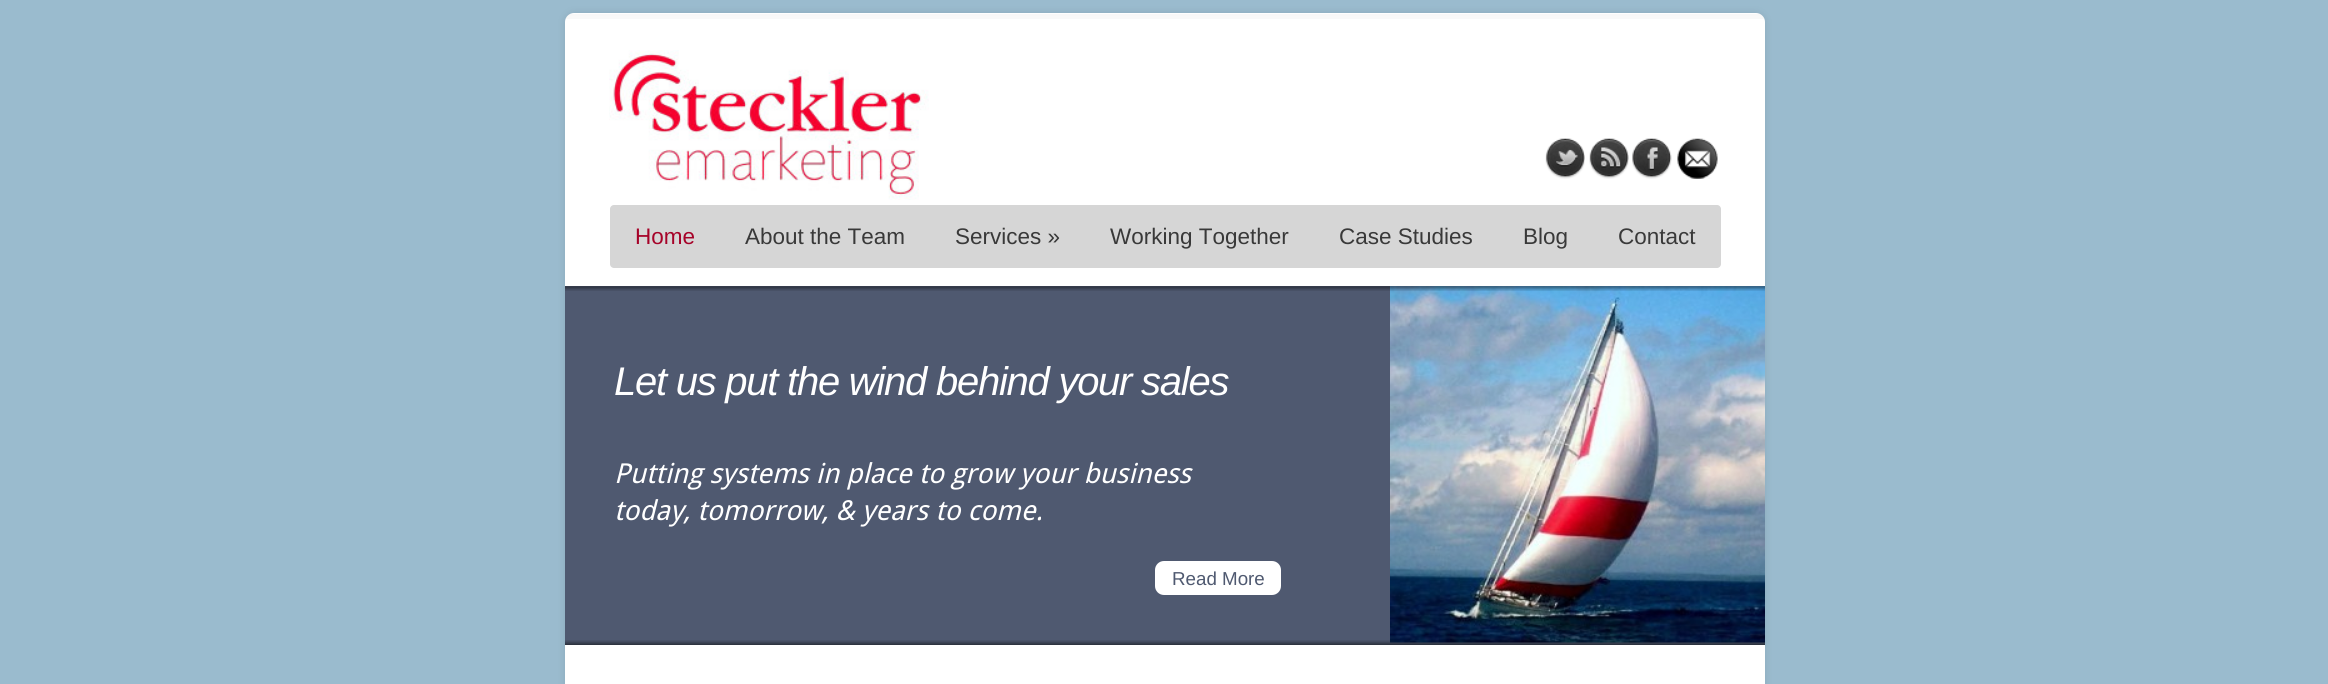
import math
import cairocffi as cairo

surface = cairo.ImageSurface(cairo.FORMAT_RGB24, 2328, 684)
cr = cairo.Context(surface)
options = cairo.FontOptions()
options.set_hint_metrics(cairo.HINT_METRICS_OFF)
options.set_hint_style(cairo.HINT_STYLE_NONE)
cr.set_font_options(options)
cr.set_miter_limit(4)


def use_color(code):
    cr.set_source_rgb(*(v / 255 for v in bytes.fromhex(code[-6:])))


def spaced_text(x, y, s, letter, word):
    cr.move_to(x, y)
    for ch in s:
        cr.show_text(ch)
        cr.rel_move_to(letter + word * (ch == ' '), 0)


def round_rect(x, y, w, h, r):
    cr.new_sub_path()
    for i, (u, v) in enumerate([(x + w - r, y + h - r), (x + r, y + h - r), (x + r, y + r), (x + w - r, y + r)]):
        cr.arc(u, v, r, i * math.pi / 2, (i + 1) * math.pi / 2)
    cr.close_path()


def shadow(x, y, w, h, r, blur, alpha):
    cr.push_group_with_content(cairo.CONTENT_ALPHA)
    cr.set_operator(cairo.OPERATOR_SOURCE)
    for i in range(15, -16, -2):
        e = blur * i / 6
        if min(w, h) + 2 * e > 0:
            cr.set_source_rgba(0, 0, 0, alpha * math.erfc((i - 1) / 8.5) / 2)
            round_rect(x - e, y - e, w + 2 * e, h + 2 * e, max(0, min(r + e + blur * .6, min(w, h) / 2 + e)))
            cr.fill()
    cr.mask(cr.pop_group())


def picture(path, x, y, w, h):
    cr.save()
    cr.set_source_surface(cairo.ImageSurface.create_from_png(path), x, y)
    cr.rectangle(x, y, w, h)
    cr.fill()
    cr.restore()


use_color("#9abbce")
cr.paint()
use_color("#000000")
shadow(565, 13, 1200, 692, 9, 4, 0.1)
use_color("#ffffff")
round_rect(565, 13, 1200, 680, 9)
cr.fill()
picture("img1.png", 566, 14, 1198, 5)
picture("img2.png", 609, 50, 320, 150)
picture("img3.png", 1545, 138, 40, 41)
picture("img4.png", 1589, 138, 40, 41)
picture("img5.png", 1632, 138, 40, 41)
picture("img6.png", 1677, 138, 41, 41)
use_color("#d6d6d6")
round_rect(610, 205, 1111, 63, 4)
cr.fill()
cr.select_font_face("Liberation Sans")
cr.set_font_size(22.5)
use_color("#a60329")
cr.move_to(635, 244)
cr.show_text("Home")
use_color("#393939")
cr.move_to(745, 244)
cr.show_text("About the Team")
cr.move_to(955, 244)
cr.show_text("Services »")
cr.move_to(1110, 244)
cr.show_text("Working Together")
cr.move_to(1339, 244)
cr.show_text("Case Studies")
cr.move_to(1523, 244)
cr.show_text("Blog")
cr.move_to(1618, 244)
cr.show_text("Contact")
use_color("#4f5970")
cr.rectangle(565, 286, 1200, 359)
cr.fill()
picture("img8.png", 1390, 286, 375, 357)
picture("img7.png", 565, 286, 1200, 5)
cr.select_font_face("Liberation Sans", cairo.FONT_SLANT_ITALIC)
cr.set_font_size(40)
use_color("#ffffff")
spaced_text(614, 395, "Let us put the wind behind your sales", -1.25, 0)
cr.select_font_face("Droid Sans", cairo.FONT_SLANT_ITALIC)
cr.set_font_size(27.5)
cr.move_to(614, 483)
cr.show_text("Putting systems in place to grow your business")
cr.move_to(614, 520)
cr.show_text("today, tomorrow, & years to come.")
round_rect(1155, 561, 126, 34, 9)
cr.fill()
cr.select_font_face("Liberation Sans")
cr.set_font_size(18.75)
use_color("#4f5970")
cr.move_to(1172, 585)
cr.show_text("Read More")
picture("img9.png", 565, 640, 1200, 5)
surface.write_to_png("result.png")
